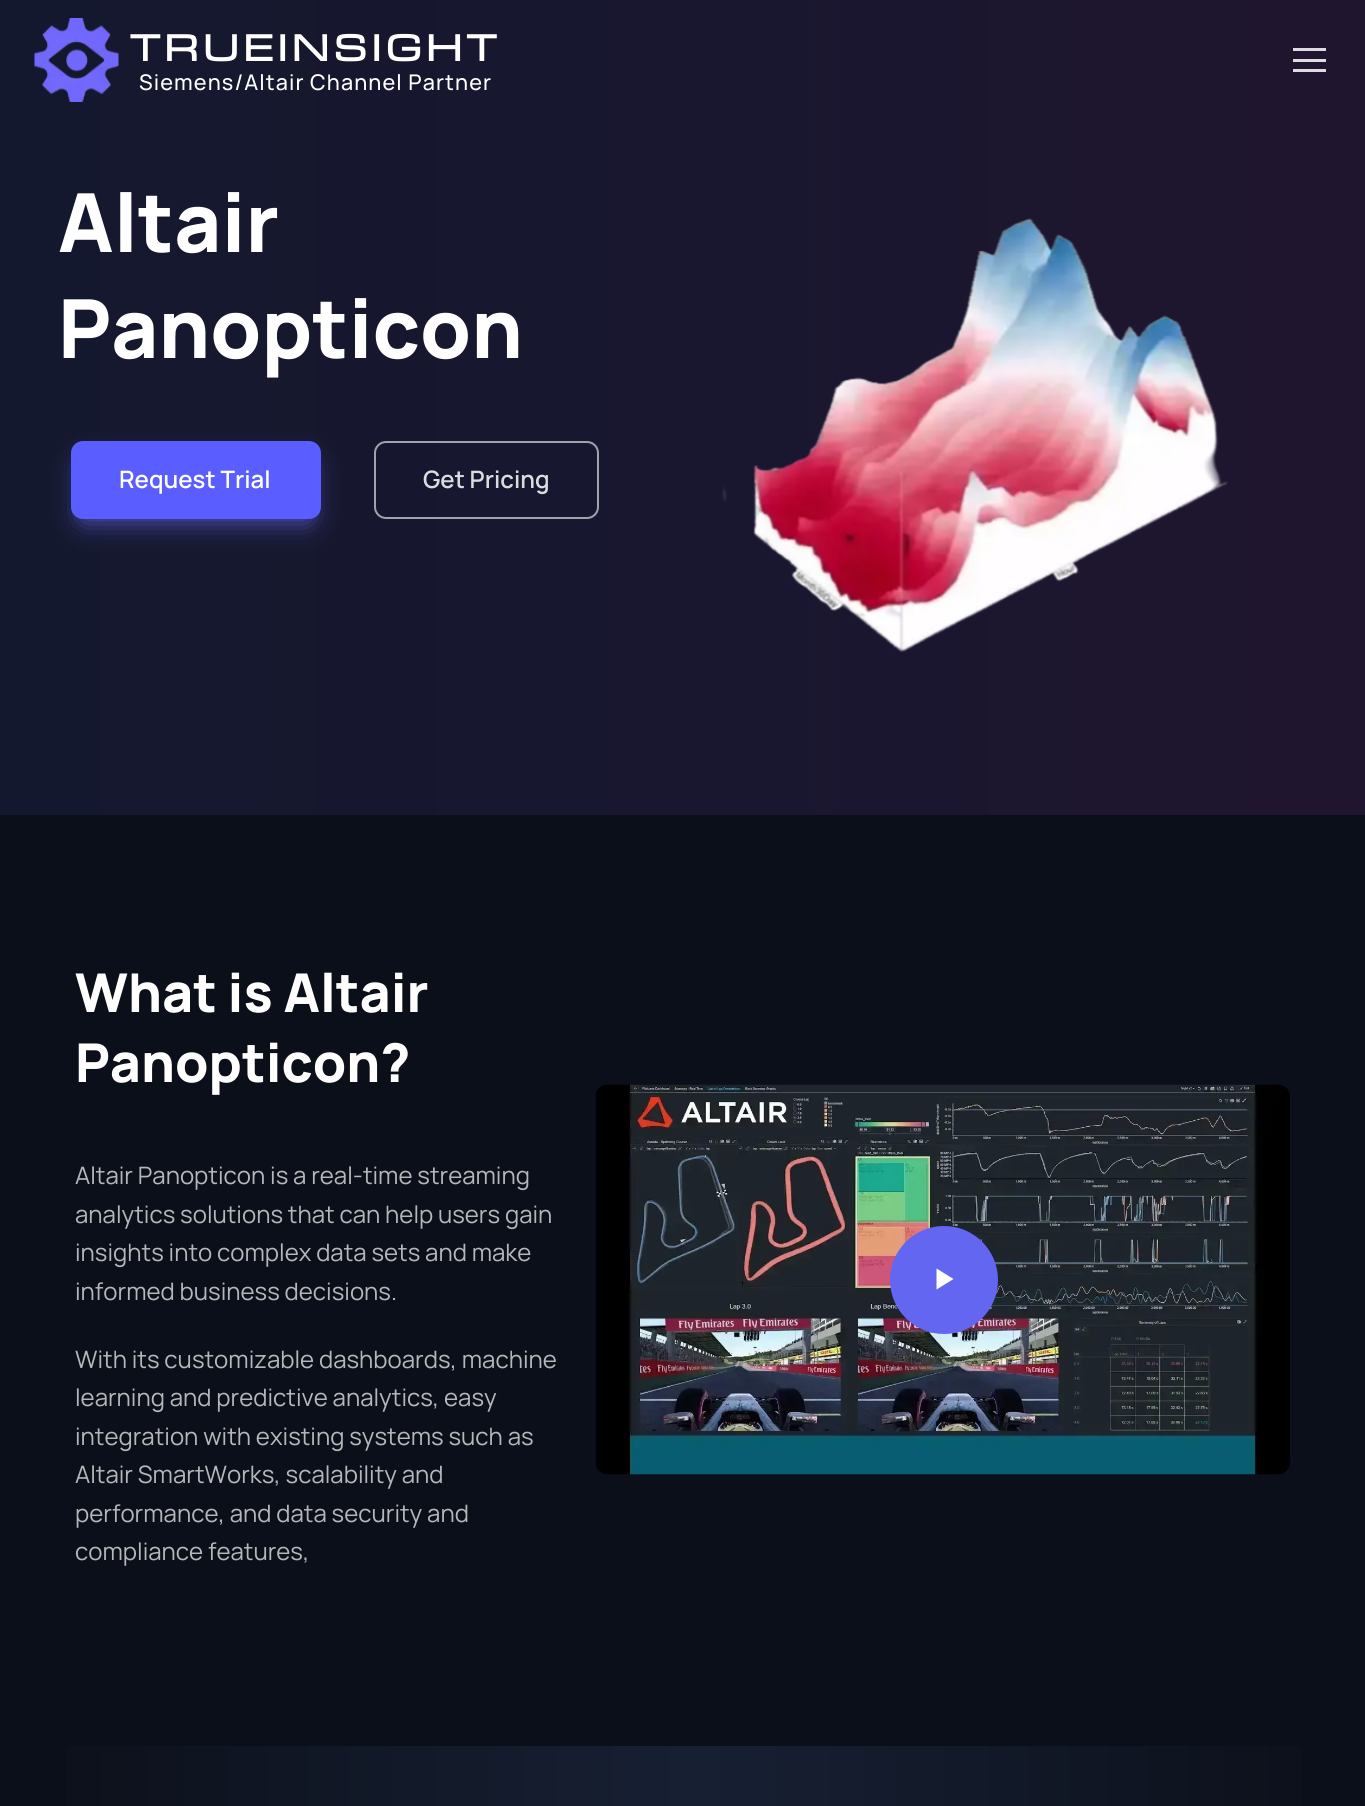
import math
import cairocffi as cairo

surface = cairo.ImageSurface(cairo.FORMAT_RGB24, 1365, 1806)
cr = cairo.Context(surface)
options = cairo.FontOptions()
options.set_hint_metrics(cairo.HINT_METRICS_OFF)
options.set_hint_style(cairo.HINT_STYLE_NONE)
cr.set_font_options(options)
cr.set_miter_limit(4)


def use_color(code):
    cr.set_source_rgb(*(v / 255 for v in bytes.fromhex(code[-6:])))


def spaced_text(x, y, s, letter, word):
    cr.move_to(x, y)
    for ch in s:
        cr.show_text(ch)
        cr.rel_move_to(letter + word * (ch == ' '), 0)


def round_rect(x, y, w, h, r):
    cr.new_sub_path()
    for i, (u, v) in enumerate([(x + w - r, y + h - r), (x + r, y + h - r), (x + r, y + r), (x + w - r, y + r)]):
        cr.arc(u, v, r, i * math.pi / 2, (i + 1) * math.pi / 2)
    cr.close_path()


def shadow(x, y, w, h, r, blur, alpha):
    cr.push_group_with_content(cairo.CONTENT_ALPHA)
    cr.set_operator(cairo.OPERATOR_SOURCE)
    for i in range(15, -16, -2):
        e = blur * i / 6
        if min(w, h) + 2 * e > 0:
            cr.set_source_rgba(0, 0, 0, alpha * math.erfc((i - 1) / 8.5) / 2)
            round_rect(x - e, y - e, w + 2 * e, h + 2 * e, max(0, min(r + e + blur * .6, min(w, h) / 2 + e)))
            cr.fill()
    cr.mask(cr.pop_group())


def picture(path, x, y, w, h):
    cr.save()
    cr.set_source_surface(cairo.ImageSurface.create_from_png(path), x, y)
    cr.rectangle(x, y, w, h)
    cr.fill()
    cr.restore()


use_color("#0b0f19")
cr.paint()
gradient = cairo.LinearGradient(0, 407, 1365, 407)
gradient.add_color_stop_rgba(0, 0.078, 0.094, 0.18, 1)
gradient.add_color_stop_rgba(0.5, 0.094, 0.09, 0.184, 1)
gradient.add_color_stop_rgba(1, 0.125, 0.082, 0.18, 1)
cr.set_source(gradient)
cr.rectangle(0, 0, 1365, 815)
cr.fill()
picture("img1.png", 34, 18, 85, 84)
cr.select_font_face("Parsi", cairo.FONT_SLANT_NORMAL, cairo.FONT_WEIGHT_BOLD)
cr.set_font_size(45.25)
use_color("#ffffff")
spaced_text(130, 61, "TRUEINSIGHT", 4.5, 0)
cr.select_font_face("Manrope Medium")
cr.set_font_size(21.6)
spaced_text(139, 90, "Siemens/Altair Channel Partner", 1.1, 0)
use_color("#dddce0")
cr.rectangle(1293, 59, 33, 3)
cr.fill()
cr.rectangle(1293, 48, 33, 3)
cr.fill()
cr.rectangle(1293, 69, 33, 3)
cr.fill()
cr.select_font_face("Manrope ExtraBold")
cr.set_font_size(81.5)
use_color("#ffffff")
cr.move_to(58, 252)
cr.show_text("Altair")
cr.move_to(58, 358)
cr.show_text("Panopticon")
use_color("#6366f1")
shadow(83, 465, 226, 54, 0, 13.5, 0.9)
use_color("#5a5dff")
round_rect(72, 442, 248, 76, 11)
cr.fill_preserve()
cr.stroke()
cr.select_font_face("Manrope SemiBold")
cr.set_font_size(24)
use_color("#ffffff")
cr.move_to(119, 488)
cr.show_text("Request Trial")
round_rect(375, 442, 223, 76, 11)
use_color("#a2a2ac")
cr.stroke()
use_color("#dcdce0")
cr.move_to(423, 488)
cr.show_text("Get Pricing")
picture("img2.png", 722, 218, 506, 435)
cr.select_font_face("Manrope ExtraBold")
cr.set_font_size(53.5)
use_color("#ffffff")
cr.move_to(75, 1012)
cr.show_text("What is Altair")
cr.move_to(75, 1082)
cr.show_text("Panopticon?")
cr.select_font_face("Manrope")
cr.set_font_size(24)
use_color("#b6b7ba")
cr.move_to(75, 1184)
cr.show_text("Altair Panopticon is a real-time streaming")
cr.move_to(75, 1223)
cr.show_text("analytics solutions that can help users gain")
cr.move_to(75, 1261)
cr.show_text("insights into complex data sets and make")
cr.move_to(75, 1300)
cr.show_text("informed business decisions.")
cr.move_to(75, 1368)
cr.show_text("With its customizable dashboards, machine")
cr.move_to(75, 1406)
cr.show_text("learning and predictive analytics, easy")
cr.move_to(75, 1445)
cr.show_text("integration with existing systems such as")
cr.move_to(75, 1483)
cr.show_text("Altair SmartWorks, scalability and")
cr.move_to(75, 1522)
cr.show_text("performance, and data security and")
cr.move_to(75, 1560)
cr.show_text("compliance features,")
picture("img3.png", 595, 1084, 695, 391)
use_color("#6366f1")
cr.arc(944, 1280, 54, 0, 2 * math.pi)
cr.fill()
use_color("#ffffff")
cr.new_path()
cr.move_to(936.5, 1268.5)
cr.line_to(936.5, 1289.5)
cr.line_to(953.5, 1279)
cr.close_path()
cr.fill()
gradient = cairo.LinearGradient(0, 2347, 1365, 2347)
gradient.add_color_stop_rgba(0, 0.043, 0.059, 0.098, 1)
gradient.add_color_stop_rgba(0.51, 0.09, 0.125, 0.2, 1)
gradient.add_color_stop_rgba(1, 0.043, 0.059, 0.098, 1)
cr.set_source(gradient)
cr.rectangle(67, 1746, 1234, 60)
cr.fill()
surface.write_to_png("result.png")
